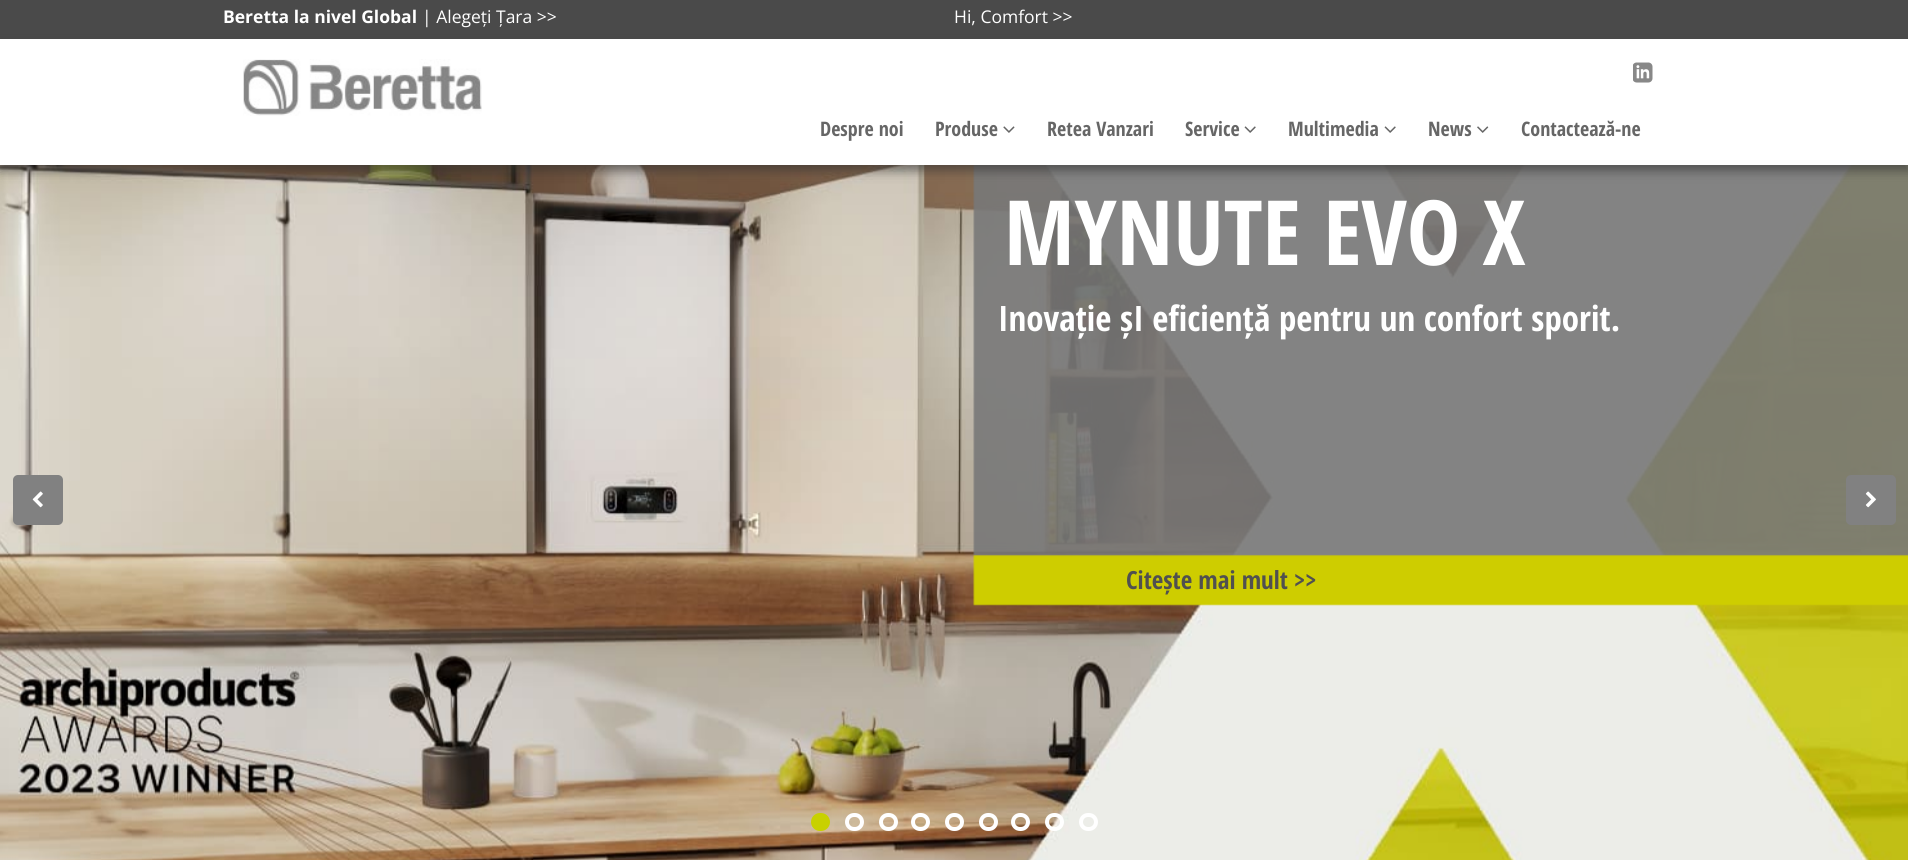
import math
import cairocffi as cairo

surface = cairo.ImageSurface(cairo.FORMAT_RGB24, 1908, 860)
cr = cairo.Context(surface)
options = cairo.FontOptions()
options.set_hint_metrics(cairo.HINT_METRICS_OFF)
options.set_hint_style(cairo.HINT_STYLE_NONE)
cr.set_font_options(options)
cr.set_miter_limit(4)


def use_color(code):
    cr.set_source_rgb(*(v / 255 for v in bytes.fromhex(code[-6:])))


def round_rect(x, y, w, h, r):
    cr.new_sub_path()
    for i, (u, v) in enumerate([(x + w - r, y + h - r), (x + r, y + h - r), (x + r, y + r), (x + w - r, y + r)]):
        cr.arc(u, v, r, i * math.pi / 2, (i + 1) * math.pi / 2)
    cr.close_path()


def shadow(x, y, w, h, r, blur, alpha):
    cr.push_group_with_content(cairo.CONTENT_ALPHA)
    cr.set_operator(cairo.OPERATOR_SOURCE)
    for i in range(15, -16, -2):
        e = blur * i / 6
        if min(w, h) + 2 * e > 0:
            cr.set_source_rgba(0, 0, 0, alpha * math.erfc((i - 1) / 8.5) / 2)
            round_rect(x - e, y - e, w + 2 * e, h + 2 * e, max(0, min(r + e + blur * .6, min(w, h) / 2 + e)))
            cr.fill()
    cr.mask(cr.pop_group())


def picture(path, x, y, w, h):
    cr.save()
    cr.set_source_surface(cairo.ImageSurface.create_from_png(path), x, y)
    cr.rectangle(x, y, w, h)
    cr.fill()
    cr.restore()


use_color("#ffffff")
cr.paint()
use_color("#4a4a4a")
cr.rectangle(0, 0, 1908, 39)
cr.fill()
cr.select_font_face("Open Sans", cairo.FONT_SLANT_NORMAL, cairo.FONT_WEIGHT_BOLD)
cr.set_font_size(17.5)
use_color("#ffffff")
cr.move_to(223, 23)
cr.show_text("Beretta la nivel Global")
cr.select_font_face("Open Sans")
cr.move_to(422, 23)
cr.show_text("| Alegeți Țara >>")
cr.move_to(954, 23)
cr.show_text("Hi, Comfort >>")
picture("img7.png", 0, 165, 1908, 695)
picture("img8.png", 973, 165, 935, 441)
use_color("#323232")
shadow(0, 45, 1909, 126, 0, 5, 0.59)
use_color("#ffffff")
cr.rectangle(0, 39, 1908, 126)
cr.fill()
picture("img1.png", 243, 59, 239, 57)
picture("img2.png", 1633, 62, 20, 21)
cr.select_font_face("Open Sans Condensed", cairo.FONT_SLANT_NORMAL, cairo.FONT_WEIGHT_BOLD)
cr.set_font_size(20)
use_color("#666666")
cr.move_to(820, 136)
cr.show_text("Despre noi")
cr.move_to(935, 136)
cr.show_text("Produse")
picture("img3.png", 1003, 126, 12, 7)
cr.move_to(1047, 136)
cr.show_text("Retea Vanzari")
cr.move_to(1185, 136)
cr.show_text("Service")
picture("img4.png", 1244, 126, 12, 7)
cr.move_to(1288, 136)
cr.show_text("Multimedia")
picture("img4.png", 1384, 126, 12, 7)
cr.move_to(1428, 136)
cr.show_text("News")
picture("img5.png", 1477, 126, 12, 7)
cr.move_to(1521, 136)
cr.show_text("Contactează-ne")
use_color("#818181")
round_rect(13, 475, 50, 50, 5)
cr.fill()
picture("img6.png", 32, 491, 11, 17)
cr.set_font_size(90)
use_color("#ffffff")
cr.move_to(1004, 265)
cr.show_text("MYNUTE EVO X")
cr.set_font_size(35)
cr.move_to(998, 331)
cr.show_text("Inovație șI eficiență pentru un confort sporit.")
cr.set_font_size(25)
use_color("#505050")
cr.move_to(1126, 589)
cr.show_text("Citește mai mult >>")
use_color("#c8d100")
round_rect(813, 815, 15, 14, 7)
cr.fill_preserve()
cr.set_line_width(4)
cr.stroke()
round_rect(847, 815, 15, 14, 7)
use_color("#ffffff")
cr.stroke()
round_rect(881, 815, 15, 14, 7)
cr.stroke()
round_rect(913, 815, 15, 14, 7)
cr.stroke()
round_rect(947, 815, 15, 14, 7)
cr.stroke()
round_rect(981, 815, 15, 14, 7)
cr.stroke()
round_rect(1013, 815, 15, 14, 7)
cr.stroke()
round_rect(1047, 815, 15, 14, 7)
cr.stroke()
round_rect(1081, 815, 15, 14, 7)
cr.stroke()
use_color("#818181")
round_rect(1846, 475, 50, 50, 5)
cr.fill()
picture("img9.png", 1865, 491, 11, 17)
surface.write_to_png("result.png")
